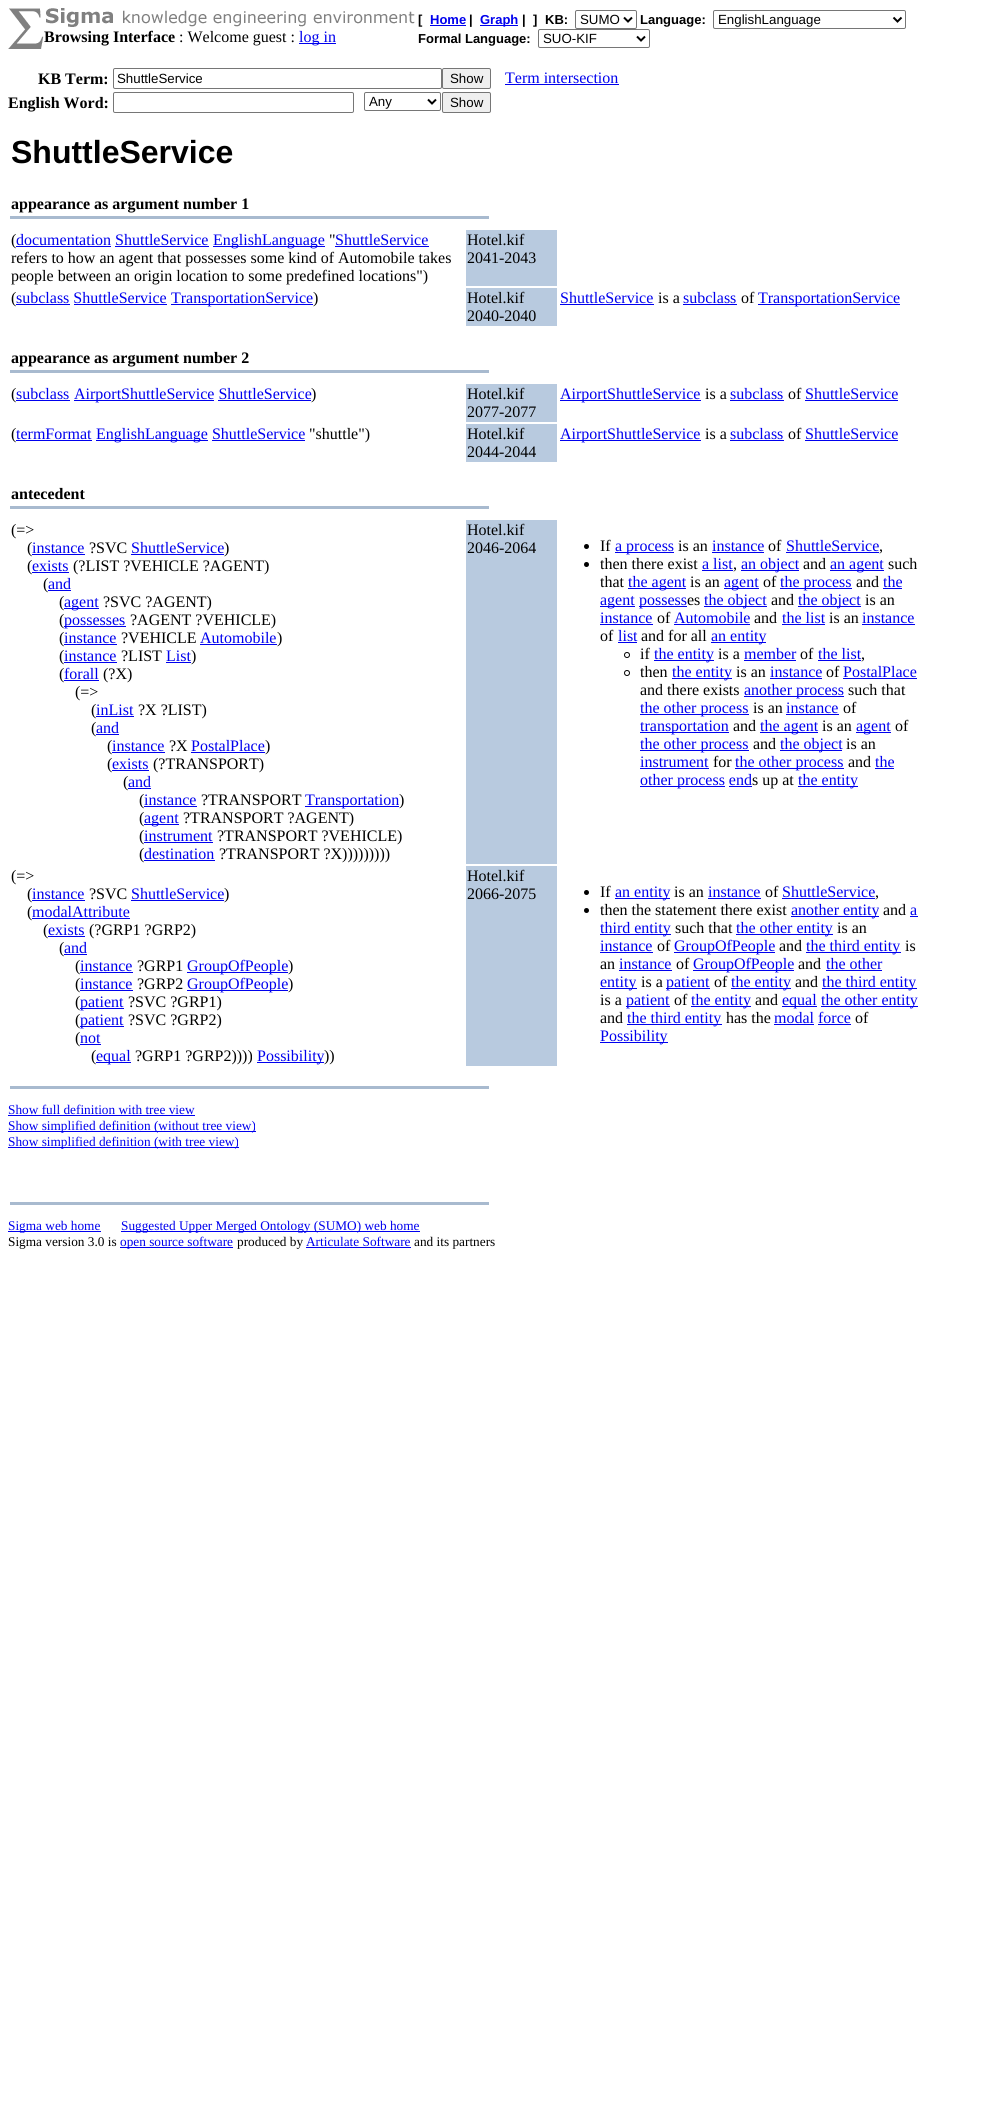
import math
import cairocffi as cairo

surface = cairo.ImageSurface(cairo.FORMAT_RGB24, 981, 2124)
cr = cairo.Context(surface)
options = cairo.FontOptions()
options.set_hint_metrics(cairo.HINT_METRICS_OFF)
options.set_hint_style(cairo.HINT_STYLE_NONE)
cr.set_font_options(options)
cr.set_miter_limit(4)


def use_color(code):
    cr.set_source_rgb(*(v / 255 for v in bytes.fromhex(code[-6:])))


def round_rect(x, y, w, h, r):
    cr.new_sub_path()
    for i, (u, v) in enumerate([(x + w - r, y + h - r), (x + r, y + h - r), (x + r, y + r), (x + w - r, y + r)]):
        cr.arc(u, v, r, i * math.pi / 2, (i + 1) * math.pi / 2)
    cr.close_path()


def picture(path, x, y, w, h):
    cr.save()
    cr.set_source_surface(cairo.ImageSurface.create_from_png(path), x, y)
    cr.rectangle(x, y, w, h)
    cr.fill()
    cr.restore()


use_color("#ffffff")
cr.paint()
picture("img1.png", 8, 8, 36, 41)
picture("img2.png", 46, 8, 369, 19)
cr.select_font_face("Liberation Serif", cairo.FONT_SLANT_NORMAL, cairo.FONT_WEIGHT_BOLD)
cr.set_font_size(16)
use_color("#000000")
cr.move_to(44, 42)
cr.show_text("Browsing Interface")
cr.select_font_face("Liberation Serif")
cr.move_to(179, 42)
cr.show_text(": Welcome guest :")
use_color("#0000ee")
cr.rectangle(299, 43, 37, 1)
cr.fill()
cr.move_to(299, 42)
cr.show_text("log in")
cr.select_font_face("Liberation Sans", cairo.FONT_SLANT_NORMAL, cairo.FONT_WEIGHT_BOLD)
cr.set_font_size(13)
use_color("#000000")
cr.move_to(418, 24)
cr.show_text("[")
use_color("#0000ee")
cr.move_to(430, 24)
cr.show_text("Home")
cr.rectangle(430, 25, 36, 1)
cr.fill()
use_color("#000000")
cr.move_to(469, 24)
cr.show_text("|")
use_color("#0000ee")
cr.rectangle(480, 25, 38, 1)
cr.fill()
cr.move_to(480, 24)
cr.show_text("Graph")
use_color("#000000")
cr.move_to(522, 24)
cr.show_text("|")
cr.move_to(533, 24)
cr.show_text("]")
cr.move_to(545, 24)
cr.show_text("KB:")
round_rect(575.5, 10.5, 61, 18, 1.5)
use_color("#767676")
cr.set_line_width(1)
cr.stroke()
cr.new_path()
cr.move_to(624, 17.5)
cr.line_to(628, 21.5)
cr.line_to(632, 17.5)
use_color("#000000")
cr.set_line_width(2)
cr.stroke()
cr.select_font_face("Liberation Sans")
cr.set_font_size(13.3)
cr.move_to(580, 24)
cr.show_text("SUMO")
cr.select_font_face("Liberation Sans", cairo.FONT_SLANT_NORMAL, cairo.FONT_WEIGHT_BOLD)
cr.set_font_size(13)
cr.move_to(640, 24)
cr.show_text("Language:")
round_rect(713.5, 10.5, 192, 18, 1.5)
use_color("#767676")
cr.set_line_width(1)
cr.stroke()
cr.new_path()
cr.move_to(893.5, 17.5)
cr.line_to(897.5, 21.5)
cr.line_to(901.5, 17.5)
use_color("#000000")
cr.set_line_width(2)
cr.stroke()
cr.select_font_face("Liberation Sans")
cr.set_font_size(13.3)
cr.move_to(718, 24)
cr.show_text("EnglishLanguage")
cr.select_font_face("Liberation Sans", cairo.FONT_SLANT_NORMAL, cairo.FONT_WEIGHT_BOLD)
cr.set_font_size(13)
cr.move_to(418, 43)
cr.show_text("Formal Language:")
round_rect(538.5, 29.5, 111, 18, 1.5)
use_color("#767676")
cr.set_line_width(1)
cr.stroke()
cr.new_path()
cr.move_to(637, 36.5)
cr.line_to(641, 40.5)
cr.line_to(645, 36.5)
use_color("#000000")
cr.set_line_width(2)
cr.stroke()
cr.select_font_face("Liberation Sans")
cr.set_font_size(13.3)
cr.move_to(543, 43)
cr.show_text("SUO-KIF")
cr.select_font_face("Liberation Serif", cairo.FONT_SLANT_NORMAL, cairo.FONT_WEIGHT_BOLD)
cr.set_font_size(16)
cr.move_to(38, 84)
cr.show_text("KB Term:")
round_rect(113.5, 68.5, 328, 20, 1.5)
use_color("#767676")
cr.set_line_width(1)
cr.stroke()
cr.select_font_face("Liberation Sans")
cr.set_font_size(13.3)
use_color("#000000")
cr.move_to(117, 83)
cr.show_text("ShuttleService")
use_color("#efefef")
round_rect(442.5, 68.5, 48, 20, 1.5)
cr.fill_preserve()
use_color("#767676")
cr.stroke()
use_color("#000000")
cr.move_to(450, 83)
cr.show_text("Show")
cr.select_font_face("Liberation Serif")
cr.set_font_size(16)
use_color("#0000ee")
cr.move_to(505, 83)
cr.show_text("Term intersection")
cr.rectangle(505, 84, 114, 1)
cr.fill()
cr.select_font_face("Liberation Serif", cairo.FONT_SLANT_NORMAL, cairo.FONT_WEIGHT_BOLD)
use_color("#000000")
cr.move_to(8, 108)
cr.show_text("English Word:")
round_rect(113.5, 92.5, 240, 20, 1.5)
use_color("#767676")
cr.stroke()
round_rect(364.5, 92.5, 76, 18, 1.5)
cr.stroke()
cr.new_path()
cr.move_to(428, 99.5)
cr.line_to(432, 103.5)
cr.line_to(436, 99.5)
use_color("#000000")
cr.set_line_width(2)
cr.stroke()
cr.select_font_face("Liberation Sans")
cr.set_font_size(13.3)
cr.move_to(369, 106)
cr.show_text("Any")
use_color("#efefef")
round_rect(442.5, 92.5, 48, 20, 1.5)
cr.fill_preserve()
use_color("#767676")
cr.set_line_width(1)
cr.stroke()
use_color("#000000")
cr.move_to(450, 107)
cr.show_text("Show")
cr.select_font_face("Liberation Sans", cairo.FONT_SLANT_NORMAL, cairo.FONT_WEIGHT_BOLD)
cr.set_font_size(32)
cr.move_to(11, 163)
cr.show_text("ShuttleService")
cr.select_font_face("Liberation Serif", cairo.FONT_SLANT_NORMAL, cairo.FONT_WEIGHT_BOLD)
cr.set_font_size(16)
cr.move_to(11, 209)
cr.show_text("appearance as argument number 1")
use_color("#a8bacf")
cr.rectangle(10, 216, 479, 3)
cr.fill()
cr.select_font_face("Liberation Serif")
use_color("#000000")
cr.move_to(11, 245)
cr.show_text("(")
use_color("#0000ee")
cr.move_to(16, 245)
cr.show_text("documentation ShuttleService")
cr.rectangle(16, 246, 95, 1)
cr.fill()
cr.rectangle(213, 246, 112, 1)
cr.fill()
cr.move_to(213, 245)
cr.show_text("EnglishLanguage")
use_color("#000000")
cr.move_to(329, 245)
cr.show_text("\"")
use_color("#0000ee")
cr.move_to(335, 245)
cr.show_text("ShuttleService")
cr.rectangle(335, 246, 94, 1)
cr.fill()
cr.rectangle(115, 246, 94, 1)
cr.fill()
use_color("#000000")
cr.move_to(11, 263)
cr.show_text("refers to how an agent that possesses some kind of Automobile takes")
cr.move_to(11, 281)
cr.show_text("people between an origin location to some predefined locations\")")
use_color("#b8cadf")
cr.rectangle(466, 230, 91, 56)
cr.fill()
use_color("#000000")
cr.move_to(467, 245)
cr.show_text("Hotel.kif")
cr.move_to(467, 263)
cr.show_text("2041-2043")
cr.move_to(11, 303)
cr.show_text("(")
use_color("#0000ee")
cr.move_to(16, 303)
cr.show_text("subclass ShuttleService")
cr.rectangle(16, 304, 54, 1)
cr.fill()
cr.rectangle(171, 304, 142, 1)
cr.fill()
cr.move_to(171, 303)
cr.show_text("TransportationService")
use_color("#000000")
cr.move_to(313, 303)
cr.show_text(")")
use_color("#0000ee")
cr.rectangle(74, 304, 93, 1)
cr.fill()
use_color("#b8cadf")
cr.rectangle(466, 288, 91, 38)
cr.fill()
use_color("#000000")
cr.move_to(467, 303)
cr.show_text("Hotel.kif")
cr.move_to(467, 321)
cr.show_text("2040-2040")
use_color("#0000ee")
cr.move_to(560, 303)
cr.show_text("ShuttleService")
cr.rectangle(560, 304, 94, 1)
cr.fill()
use_color("#000000")
cr.move_to(658, 303)
cr.show_text("is a")
use_color("#0000ee")
cr.move_to(683, 303)
cr.show_text("subclass")
cr.rectangle(683, 304, 54, 1)
cr.fill()
use_color("#000000")
cr.move_to(741, 303)
cr.show_text("of")
use_color("#0000ee")
cr.rectangle(758, 304, 142, 1)
cr.fill()
cr.move_to(758, 303)
cr.show_text("TransportationService")
cr.select_font_face("Liberation Serif", cairo.FONT_SLANT_NORMAL, cairo.FONT_WEIGHT_BOLD)
use_color("#000000")
cr.move_to(11, 363)
cr.show_text("appearance as argument number 2")
use_color("#a8bacf")
cr.rectangle(10, 370, 479, 3)
cr.fill()
cr.select_font_face("Liberation Serif")
use_color("#000000")
cr.move_to(11, 399)
cr.show_text("(")
use_color("#0000ee")
cr.move_to(16, 399)
cr.show_text("subclass")
cr.rectangle(16, 400, 54, 1)
cr.fill()
cr.rectangle(74, 400, 140, 1)
cr.fill()
cr.move_to(74, 399)
cr.show_text("AirportShuttleService ShuttleService")
use_color("#000000")
cr.move_to(311, 399)
cr.show_text(")")
use_color("#0000ee")
cr.rectangle(218, 400, 93, 1)
cr.fill()
use_color("#b8cadf")
cr.rectangle(466, 384, 91, 38)
cr.fill()
use_color("#000000")
cr.move_to(467, 399)
cr.show_text("Hotel.kif")
cr.move_to(467, 417)
cr.show_text("2077-2077")
use_color("#0000ee")
cr.rectangle(560, 400, 141, 1)
cr.fill()
cr.move_to(560, 399)
cr.show_text("AirportShuttleService")
use_color("#000000")
cr.move_to(705, 399)
cr.show_text("is a")
use_color("#0000ee")
cr.move_to(730, 399)
cr.show_text("subclass")
cr.rectangle(730, 400, 54, 1)
cr.fill()
use_color("#000000")
cr.move_to(788, 399)
cr.show_text("of")
use_color("#0000ee")
cr.move_to(805, 399)
cr.show_text("ShuttleService")
cr.rectangle(805, 400, 93, 1)
cr.fill()
use_color("#000000")
cr.move_to(11, 439)
cr.show_text("(")
use_color("#0000ee")
cr.move_to(16, 439)
cr.show_text("termFormat")
cr.rectangle(16, 440, 76, 1)
cr.fill()
cr.rectangle(96, 440, 112, 1)
cr.fill()
cr.move_to(96, 439)
cr.show_text("EnglishLanguage ShuttleService")
use_color("#000000")
cr.move_to(309, 439)
cr.show_text("\"shuttle\")")
use_color("#0000ee")
cr.rectangle(212, 440, 93, 1)
cr.fill()
use_color("#b8cadf")
cr.rectangle(466, 424, 91, 38)
cr.fill()
use_color("#000000")
cr.move_to(467, 439)
cr.show_text("Hotel.kif")
cr.move_to(467, 457)
cr.show_text("2044-2044")
use_color("#0000ee")
cr.rectangle(560, 440, 141, 1)
cr.fill()
cr.move_to(560, 439)
cr.show_text("AirportShuttleService")
use_color("#000000")
cr.move_to(705, 439)
cr.show_text("is a")
use_color("#0000ee")
cr.move_to(730, 439)
cr.show_text("subclass")
cr.rectangle(730, 440, 54, 1)
cr.fill()
use_color("#000000")
cr.move_to(788, 439)
cr.show_text("of")
use_color("#0000ee")
cr.move_to(805, 439)
cr.show_text("ShuttleService")
cr.rectangle(805, 440, 93, 1)
cr.fill()
cr.select_font_face("Liberation Serif", cairo.FONT_SLANT_NORMAL, cairo.FONT_WEIGHT_BOLD)
use_color("#000000")
cr.move_to(11, 499)
cr.show_text("antecedent")
use_color("#a8bacf")
cr.rectangle(10, 506, 479, 3)
cr.fill()
cr.select_font_face("Liberation Serif")
use_color("#000000")
cr.move_to(11, 535)
cr.show_text("(=>")
cr.move_to(27, 553)
cr.show_text("(")
use_color("#0000ee")
cr.move_to(32, 553)
cr.show_text("instance")
cr.rectangle(32, 554, 53, 1)
cr.fill()
use_color("#000000")
cr.move_to(89, 553)
cr.show_text("?SVC")
use_color("#0000ee")
cr.move_to(131, 553)
cr.show_text("ShuttleService")
cr.rectangle(131, 554, 93, 1)
cr.fill()
use_color("#000000")
cr.move_to(224, 553)
cr.show_text(")")
cr.move_to(27, 571)
cr.show_text("(")
use_color("#0000ee")
cr.move_to(32, 571)
cr.show_text("exists")
cr.rectangle(32, 572, 37, 1)
cr.fill()
use_color("#000000")
cr.move_to(73, 571)
cr.show_text("(?LIST ?VEHICLE ?AGENT)")
cr.move_to(43, 589)
cr.show_text("(")
use_color("#0000ee")
cr.move_to(48, 589)
cr.show_text("and")
cr.rectangle(48, 590, 23, 1)
cr.fill()
use_color("#000000")
cr.move_to(59, 607)
cr.show_text("(")
use_color("#0000ee")
cr.rectangle(64, 608, 35, 1)
cr.fill()
cr.move_to(64, 607)
cr.show_text("agent")
use_color("#000000")
cr.move_to(103, 607)
cr.show_text("?SVC ?AGENT)")
cr.move_to(59, 625)
cr.show_text("(")
use_color("#0000ee")
cr.rectangle(64, 626, 62, 1)
cr.fill()
cr.move_to(64, 625)
cr.show_text("possesses")
use_color("#000000")
cr.move_to(130, 625)
cr.show_text("?AGENT ?VEHICLE)")
cr.move_to(59, 643)
cr.show_text("(")
use_color("#0000ee")
cr.move_to(64, 643)
cr.show_text("instance")
cr.rectangle(64, 644, 53, 1)
cr.fill()
use_color("#000000")
cr.move_to(121, 643)
cr.show_text("?VEHICLE")
use_color("#0000ee")
cr.move_to(200, 643)
cr.show_text("Automobile")
cr.rectangle(200, 644, 77, 1)
cr.fill()
use_color("#000000")
cr.move_to(277, 643)
cr.show_text(")")
cr.move_to(59, 661)
cr.show_text("(")
use_color("#0000ee")
cr.move_to(64, 661)
cr.show_text("instance")
cr.rectangle(64, 662, 53, 1)
cr.fill()
use_color("#000000")
cr.move_to(121, 661)
cr.show_text("?LIST")
use_color("#0000ee")
cr.move_to(166, 661)
cr.show_text("List")
cr.rectangle(166, 662, 25, 1)
cr.fill()
use_color("#000000")
cr.move_to(191, 661)
cr.show_text(")")
cr.move_to(59, 679)
cr.show_text("(")
use_color("#0000ee")
cr.move_to(64, 679)
cr.show_text("forall")
cr.rectangle(64, 680, 35, 1)
cr.fill()
use_color("#000000")
cr.move_to(103, 679)
cr.show_text("(?X)")
cr.move_to(75, 697)
cr.show_text("(=>")
cr.move_to(91, 715)
cr.show_text("(")
use_color("#0000ee")
cr.move_to(96, 715)
cr.show_text("inList")
cr.rectangle(96, 716, 38, 1)
cr.fill()
use_color("#000000")
cr.move_to(138, 715)
cr.show_text("?X ?LIST)")
cr.move_to(91, 733)
cr.show_text("(")
use_color("#0000ee")
cr.move_to(96, 733)
cr.show_text("and")
cr.rectangle(96, 734, 23, 1)
cr.fill()
use_color("#000000")
cr.move_to(107, 751)
cr.show_text("(")
use_color("#0000ee")
cr.move_to(112, 751)
cr.show_text("instance")
cr.rectangle(112, 752, 53, 1)
cr.fill()
use_color("#000000")
cr.move_to(169, 751)
cr.show_text("?X")
use_color("#0000ee")
cr.move_to(191, 751)
cr.show_text("PostalPlace")
cr.rectangle(191, 752, 74, 1)
cr.fill()
use_color("#000000")
cr.move_to(265, 751)
cr.show_text(")")
cr.move_to(107, 769)
cr.show_text("(")
use_color("#0000ee")
cr.move_to(112, 769)
cr.show_text("exists")
cr.rectangle(112, 770, 37, 1)
cr.fill()
use_color("#000000")
cr.move_to(153, 769)
cr.show_text("(?TRANSPORT)")
cr.move_to(123, 787)
cr.show_text("(")
use_color("#0000ee")
cr.move_to(128, 787)
cr.show_text("and")
cr.rectangle(128, 788, 23, 1)
cr.fill()
use_color("#000000")
cr.move_to(139, 805)
cr.show_text("(")
use_color("#0000ee")
cr.move_to(144, 805)
cr.show_text("instance")
cr.rectangle(144, 806, 53, 1)
cr.fill()
use_color("#000000")
cr.move_to(201, 805)
cr.show_text("?TRANSPORT")
use_color("#0000ee")
cr.rectangle(305, 806, 94, 1)
cr.fill()
cr.move_to(305, 805)
cr.show_text("Transportation")
use_color("#000000")
cr.move_to(399, 805)
cr.show_text(")")
cr.move_to(139, 823)
cr.show_text("(")
use_color("#0000ee")
cr.rectangle(144, 824, 35, 1)
cr.fill()
cr.move_to(144, 823)
cr.show_text("agent")
use_color("#000000")
cr.move_to(183, 823)
cr.show_text("?TRANSPORT ?AGENT)")
cr.move_to(139, 841)
cr.show_text("(")
use_color("#0000ee")
cr.move_to(144, 841)
cr.show_text("instrument")
cr.rectangle(144, 842, 69, 1)
cr.fill()
use_color("#000000")
cr.move_to(217, 841)
cr.show_text("?TRANSPORT ?VEHICLE)")
cr.move_to(139, 859)
cr.show_text("(")
use_color("#0000ee")
cr.move_to(144, 859)
cr.show_text("destination")
cr.rectangle(144, 860, 71, 1)
cr.fill()
use_color("#000000")
cr.move_to(219, 859)
cr.show_text("?TRANSPORT ?X)))))))))")
use_color("#b8cadf")
cr.rectangle(466, 520, 91, 344)
cr.fill()
use_color("#000000")
cr.move_to(467, 535)
cr.show_text("Hotel.kif")
cr.move_to(467, 553)
cr.show_text("2046-2064")
cr.new_path()
cr.arc(586.5, 546.5, 2.5, 0, 2 * math.pi)
cr.fill()
cr.move_to(600, 551)
cr.show_text("If")
use_color("#0000ee")
cr.rectangle(615, 552, 59, 1)
cr.fill()
cr.move_to(615, 551)
cr.show_text("a process")
use_color("#000000")
cr.move_to(678, 551)
cr.show_text("is an")
use_color("#0000ee")
cr.move_to(712, 551)
cr.show_text("instance")
cr.rectangle(712, 552, 52, 1)
cr.fill()
use_color("#000000")
cr.move_to(768, 551)
cr.show_text("of")
use_color("#0000ee")
cr.move_to(786, 551)
cr.show_text("ShuttleService")
cr.rectangle(786, 552, 93, 1)
cr.fill()
use_color("#000000")
cr.move_to(879, 551)
cr.show_text(",")
cr.new_path()
cr.arc(586.5, 564.5, 2.5, 0, 2 * math.pi)
cr.fill()
cr.move_to(600, 569)
cr.show_text("then there exist")
use_color("#0000ee")
cr.move_to(702, 569)
cr.show_text("a list")
cr.rectangle(702, 570, 31, 1)
cr.fill()
cr.rectangle(741, 570, 58, 1)
cr.fill()
cr.move_to(741, 569)
cr.show_text("an object")
use_color("#000000")
cr.move_to(803, 569)
cr.show_text("and")
use_color("#0000ee")
cr.rectangle(830, 570, 54, 1)
cr.fill()
cr.move_to(830, 569)
cr.show_text("an agent")
use_color("#000000")
cr.move_to(888, 569)
cr.show_text("such")
cr.move_to(733, 569)
cr.show_text(",")
cr.move_to(600, 587)
cr.show_text("that")
use_color("#0000ee")
cr.rectangle(628, 588, 58, 1)
cr.fill()
cr.move_to(628, 587)
cr.show_text("the agent")
use_color("#000000")
cr.move_to(690, 587)
cr.show_text("is an")
use_color("#0000ee")
cr.rectangle(724, 588, 35, 1)
cr.fill()
cr.move_to(724, 587)
cr.show_text("agent")
use_color("#000000")
cr.move_to(763, 587)
cr.show_text("of")
use_color("#0000ee")
cr.rectangle(780, 588, 72, 1)
cr.fill()
cr.move_to(780, 587)
cr.show_text("the process")
use_color("#000000")
cr.move_to(856, 587)
cr.show_text("and")
use_color("#0000ee")
cr.move_to(883, 587)
cr.show_text("the")
cr.rectangle(883, 588, 19, 1)
cr.fill()
cr.rectangle(600, 606, 35, 1)
cr.fill()
cr.move_to(600, 605)
cr.show_text("agent")
cr.rectangle(639, 606, 48, 1)
cr.fill()
cr.move_to(639, 605)
cr.show_text("possess")
use_color("#000000")
cr.move_to(687, 605)
cr.show_text("es")
use_color("#0000ee")
cr.rectangle(704, 606, 63, 1)
cr.fill()
cr.move_to(704, 605)
cr.show_text("the object")
use_color("#000000")
cr.move_to(771, 605)
cr.show_text("and")
use_color("#0000ee")
cr.rectangle(798, 606, 63, 1)
cr.fill()
cr.move_to(798, 605)
cr.show_text("the object")
use_color("#000000")
cr.move_to(865, 605)
cr.show_text("is an")
use_color("#0000ee")
cr.move_to(600, 623)
cr.show_text("instance")
cr.rectangle(600, 624, 53, 1)
cr.fill()
use_color("#000000")
cr.move_to(657, 623)
cr.show_text("of")
use_color("#0000ee")
cr.move_to(674, 623)
cr.show_text("Automobile")
cr.rectangle(674, 624, 76, 1)
cr.fill()
use_color("#000000")
cr.move_to(754, 623)
cr.show_text("and")
use_color("#0000ee")
cr.move_to(782, 623)
cr.show_text("the list")
cr.rectangle(782, 624, 43, 1)
cr.fill()
use_color("#000000")
cr.move_to(829, 623)
cr.show_text("is an")
use_color("#0000ee")
cr.move_to(862, 623)
cr.show_text("instance")
cr.rectangle(862, 624, 53, 1)
cr.fill()
use_color("#000000")
cr.move_to(600, 641)
cr.show_text("of")
use_color("#0000ee")
cr.move_to(618, 641)
cr.show_text("list")
cr.rectangle(618, 642, 19, 1)
cr.fill()
use_color("#000000")
cr.move_to(641, 641)
cr.show_text("and for all")
use_color("#0000ee")
cr.rectangle(711, 642, 55, 1)
cr.fill()
cr.move_to(711, 641)
cr.show_text("an entity")
cr.new_path()
cr.arc(627, 655, 2.5, 0, 2 * math.pi)
use_color("#000000")
cr.stroke()
cr.move_to(640, 659)
cr.show_text("if")
use_color("#0000ee")
cr.rectangle(654, 660, 60, 1)
cr.fill()
cr.move_to(654, 659)
cr.show_text("the entity")
use_color("#000000")
cr.move_to(718, 659)
cr.show_text("is a")
use_color("#0000ee")
cr.move_to(744, 659)
cr.show_text("member")
cr.rectangle(744, 660, 52, 1)
cr.fill()
use_color("#000000")
cr.move_to(800, 659)
cr.show_text("of")
use_color("#0000ee")
cr.move_to(818, 659)
cr.show_text("the list")
cr.rectangle(818, 660, 43, 1)
cr.fill()
use_color("#000000")
cr.move_to(861, 659)
cr.show_text(",")
cr.new_path()
cr.arc(627, 673, 2.5, 0, 2 * math.pi)
cr.stroke()
cr.move_to(640, 677)
cr.show_text("then")
use_color("#0000ee")
cr.rectangle(672, 678, 60, 1)
cr.fill()
cr.move_to(672, 677)
cr.show_text("the entity")
use_color("#000000")
cr.move_to(736, 677)
cr.show_text("is an")
use_color("#0000ee")
cr.move_to(770, 677)
cr.show_text("instance")
cr.rectangle(770, 678, 52, 1)
cr.fill()
use_color("#000000")
cr.move_to(826, 677)
cr.show_text("of")
use_color("#0000ee")
cr.move_to(843, 677)
cr.show_text("PostalPlace")
cr.rectangle(843, 678, 74, 1)
cr.fill()
use_color("#000000")
cr.move_to(640, 695)
cr.show_text("and there exists")
use_color("#0000ee")
cr.rectangle(744, 696, 100, 1)
cr.fill()
cr.move_to(744, 695)
cr.show_text("another process")
use_color("#000000")
cr.move_to(848, 695)
cr.show_text("such that")
use_color("#0000ee")
cr.rectangle(640, 714, 109, 1)
cr.fill()
cr.move_to(640, 713)
cr.show_text("the other process")
use_color("#000000")
cr.move_to(753, 713)
cr.show_text("is an")
use_color("#0000ee")
cr.move_to(786, 713)
cr.show_text("instance")
cr.rectangle(786, 714, 53, 1)
cr.fill()
use_color("#000000")
cr.move_to(843, 713)
cr.show_text("of")
use_color("#0000ee")
cr.rectangle(640, 732, 89, 1)
cr.fill()
cr.move_to(640, 731)
cr.show_text("transportation")
use_color("#000000")
cr.move_to(733, 731)
cr.show_text("and")
use_color("#0000ee")
cr.rectangle(760, 732, 58, 1)
cr.fill()
cr.move_to(760, 731)
cr.show_text("the agent")
use_color("#000000")
cr.move_to(822, 731)
cr.show_text("is an")
use_color("#0000ee")
cr.rectangle(856, 732, 35, 1)
cr.fill()
cr.move_to(856, 731)
cr.show_text("agent")
use_color("#000000")
cr.move_to(895, 731)
cr.show_text("of")
use_color("#0000ee")
cr.rectangle(640, 750, 109, 1)
cr.fill()
cr.move_to(640, 749)
cr.show_text("the other process")
use_color("#000000")
cr.move_to(753, 749)
cr.show_text("and")
use_color("#0000ee")
cr.rectangle(780, 750, 62, 1)
cr.fill()
cr.move_to(780, 749)
cr.show_text("the object")
use_color("#000000")
cr.move_to(846, 749)
cr.show_text("is an")
use_color("#0000ee")
cr.move_to(640, 767)
cr.show_text("instrument")
cr.rectangle(640, 768, 69, 1)
cr.fill()
use_color("#000000")
cr.move_to(713, 767)
cr.show_text("for")
use_color("#0000ee")
cr.rectangle(735, 768, 109, 1)
cr.fill()
cr.move_to(735, 767)
cr.show_text("the other process")
use_color("#000000")
cr.move_to(848, 767)
cr.show_text("and")
use_color("#0000ee")
cr.move_to(875, 767)
cr.show_text("the")
cr.rectangle(875, 768, 19, 1)
cr.fill()
cr.rectangle(640, 786, 85, 1)
cr.fill()
cr.move_to(640, 785)
cr.show_text("other process end")
use_color("#000000")
cr.move_to(752, 785)
cr.show_text("s up at")
use_color("#0000ee")
cr.rectangle(798, 786, 60, 1)
cr.fill()
cr.move_to(798, 785)
cr.show_text("the entity")
cr.rectangle(729, 786, 23, 1)
cr.fill()
use_color("#000000")
cr.move_to(11, 881)
cr.show_text("(=>")
cr.move_to(27, 899)
cr.show_text("(")
use_color("#0000ee")
cr.move_to(32, 899)
cr.show_text("instance")
cr.rectangle(32, 900, 53, 1)
cr.fill()
use_color("#000000")
cr.move_to(89, 899)
cr.show_text("?SVC")
use_color("#0000ee")
cr.move_to(131, 899)
cr.show_text("ShuttleService")
cr.rectangle(131, 900, 93, 1)
cr.fill()
use_color("#000000")
cr.move_to(224, 899)
cr.show_text(")")
cr.move_to(27, 917)
cr.show_text("(")
use_color("#0000ee")
cr.move_to(32, 917)
cr.show_text("modalAttribute")
cr.rectangle(32, 918, 98, 1)
cr.fill()
use_color("#000000")
cr.move_to(43, 935)
cr.show_text("(")
use_color("#0000ee")
cr.move_to(48, 935)
cr.show_text("exists")
cr.rectangle(48, 936, 37, 1)
cr.fill()
use_color("#000000")
cr.move_to(89, 935)
cr.show_text("(?GRP1 ?GRP2)")
cr.move_to(59, 953)
cr.show_text("(")
use_color("#0000ee")
cr.move_to(64, 953)
cr.show_text("and")
cr.rectangle(64, 954, 23, 1)
cr.fill()
use_color("#000000")
cr.move_to(75, 971)
cr.show_text("(")
use_color("#0000ee")
cr.move_to(80, 971)
cr.show_text("instance")
cr.rectangle(80, 972, 53, 1)
cr.fill()
use_color("#000000")
cr.move_to(137, 971)
cr.show_text("?GRP1")
use_color("#0000ee")
cr.rectangle(187, 972, 101, 1)
cr.fill()
cr.move_to(187, 971)
cr.show_text("GroupOfPeople")
use_color("#000000")
cr.move_to(288, 971)
cr.show_text(")")
cr.move_to(75, 989)
cr.show_text("(")
use_color("#0000ee")
cr.move_to(80, 989)
cr.show_text("instance")
cr.rectangle(80, 990, 53, 1)
cr.fill()
use_color("#000000")
cr.move_to(137, 989)
cr.show_text("?GRP2")
use_color("#0000ee")
cr.rectangle(187, 990, 101, 1)
cr.fill()
cr.move_to(187, 989)
cr.show_text("GroupOfPeople")
use_color("#000000")
cr.move_to(288, 989)
cr.show_text(")")
cr.move_to(75, 1007)
cr.show_text("(")
use_color("#0000ee")
cr.rectangle(80, 1008, 44, 1)
cr.fill()
cr.move_to(80, 1007)
cr.show_text("patient")
use_color("#000000")
cr.move_to(128, 1007)
cr.show_text("?SVC ?GRP1)")
cr.move_to(75, 1025)
cr.show_text("(")
use_color("#0000ee")
cr.rectangle(80, 1026, 44, 1)
cr.fill()
cr.move_to(80, 1025)
cr.show_text("patient")
use_color("#000000")
cr.move_to(128, 1025)
cr.show_text("?SVC ?GRP2)")
cr.move_to(75, 1043)
cr.show_text("(")
use_color("#0000ee")
cr.move_to(80, 1043)
cr.show_text("not")
cr.rectangle(80, 1044, 21, 1)
cr.fill()
use_color("#000000")
cr.move_to(91, 1061)
cr.show_text("(")
use_color("#0000ee")
cr.rectangle(96, 1062, 35, 1)
cr.fill()
cr.move_to(96, 1061)
cr.show_text("equal")
use_color("#000000")
cr.move_to(135, 1061)
cr.show_text("?GRP1 ?GRP2))))")
use_color("#0000ee")
cr.rectangle(257, 1062, 67, 1)
cr.fill()
cr.move_to(257, 1061)
cr.show_text("Possibility")
use_color("#000000")
cr.move_to(324, 1061)
cr.show_text("))")
use_color("#b8cadf")
cr.rectangle(466, 866, 91, 200)
cr.fill()
use_color("#000000")
cr.move_to(467, 881)
cr.show_text("Hotel.kif")
cr.move_to(467, 899)
cr.show_text("2066-2075")
cr.new_path()
cr.arc(586.5, 892.5, 2.5, 0, 2 * math.pi)
cr.fill()
cr.move_to(600, 897)
cr.show_text("If")
use_color("#0000ee")
cr.rectangle(615, 898, 55, 1)
cr.fill()
cr.move_to(615, 897)
cr.show_text("an entity")
use_color("#000000")
cr.move_to(674, 897)
cr.show_text("is an")
use_color("#0000ee")
cr.move_to(708, 897)
cr.show_text("instance")
cr.rectangle(708, 898, 53, 1)
cr.fill()
use_color("#000000")
cr.move_to(765, 897)
cr.show_text("of")
use_color("#0000ee")
cr.move_to(782, 897)
cr.show_text("ShuttleService")
cr.rectangle(782, 898, 93, 1)
cr.fill()
use_color("#000000")
cr.move_to(875, 897)
cr.show_text(",")
cr.new_path()
cr.arc(586.5, 910.5, 2.5, 0, 2 * math.pi)
cr.fill()
cr.move_to(600, 915)
cr.show_text("then the statement there exist")
use_color("#0000ee")
cr.rectangle(791, 916, 88, 1)
cr.fill()
cr.move_to(791, 915)
cr.show_text("another entity")
use_color("#000000")
cr.move_to(883, 915)
cr.show_text("and")
use_color("#0000ee")
cr.move_to(910, 915)
cr.show_text("a")
cr.rectangle(910, 916, 8, 1)
cr.fill()
cr.rectangle(600, 934, 71, 1)
cr.fill()
cr.move_to(600, 933)
cr.show_text("third entity")
use_color("#000000")
cr.move_to(675, 933)
cr.show_text("such that")
use_color("#0000ee")
cr.rectangle(736, 934, 97, 1)
cr.fill()
cr.move_to(736, 933)
cr.show_text("the other entity")
use_color("#000000")
cr.move_to(837, 933)
cr.show_text("is an")
use_color("#0000ee")
cr.move_to(600, 951)
cr.show_text("instance")
cr.rectangle(600, 952, 53, 1)
cr.fill()
use_color("#000000")
cr.move_to(657, 951)
cr.show_text("of")
use_color("#0000ee")
cr.rectangle(674, 952, 101, 1)
cr.fill()
cr.move_to(674, 951)
cr.show_text("GroupOfPeople")
use_color("#000000")
cr.move_to(779, 951)
cr.show_text("and")
use_color("#0000ee")
cr.rectangle(806, 952, 95, 1)
cr.fill()
cr.move_to(806, 951)
cr.show_text("the third entity")
use_color("#000000")
cr.move_to(905, 951)
cr.show_text("is")
cr.move_to(600, 969)
cr.show_text("an")
use_color("#0000ee")
cr.move_to(619, 969)
cr.show_text("instance")
cr.rectangle(619, 970, 53, 1)
cr.fill()
use_color("#000000")
cr.move_to(676, 969)
cr.show_text("of")
use_color("#0000ee")
cr.rectangle(693, 970, 101, 1)
cr.fill()
cr.move_to(693, 969)
cr.show_text("GroupOfPeople")
use_color("#000000")
cr.move_to(798, 969)
cr.show_text("and")
use_color("#0000ee")
cr.move_to(826, 969)
cr.show_text("the other")
cr.rectangle(826, 970, 56, 1)
cr.fill()
cr.rectangle(600, 988, 37, 1)
cr.fill()
cr.move_to(600, 987)
cr.show_text("entity")
use_color("#000000")
cr.move_to(641, 987)
cr.show_text("is a")
use_color("#0000ee")
cr.rectangle(666, 988, 44, 1)
cr.fill()
cr.move_to(666, 987)
cr.show_text("patient")
use_color("#000000")
cr.move_to(714, 987)
cr.show_text("of")
use_color("#0000ee")
cr.rectangle(731, 988, 60, 1)
cr.fill()
cr.move_to(731, 987)
cr.show_text("the entity")
use_color("#000000")
cr.move_to(795, 987)
cr.show_text("and")
use_color("#0000ee")
cr.rectangle(822, 988, 95, 1)
cr.fill()
cr.move_to(822, 987)
cr.show_text("the third entity")
use_color("#000000")
cr.move_to(600, 1005)
cr.show_text("is a")
use_color("#0000ee")
cr.rectangle(626, 1006, 44, 1)
cr.fill()
cr.move_to(626, 1005)
cr.show_text("patient")
use_color("#000000")
cr.move_to(674, 1005)
cr.show_text("of")
use_color("#0000ee")
cr.rectangle(691, 1006, 60, 1)
cr.fill()
cr.move_to(691, 1005)
cr.show_text("the entity")
use_color("#000000")
cr.move_to(755, 1005)
cr.show_text("and")
use_color("#0000ee")
cr.rectangle(782, 1006, 35, 1)
cr.fill()
cr.move_to(782, 1005)
cr.show_text("equal")
cr.rectangle(821, 1006, 97, 1)
cr.fill()
cr.move_to(821, 1005)
cr.show_text("the other entity")
use_color("#000000")
cr.move_to(600, 1023)
cr.show_text("and")
use_color("#0000ee")
cr.rectangle(627, 1024, 95, 1)
cr.fill()
cr.move_to(627, 1023)
cr.show_text("the third entity")
use_color("#000000")
cr.move_to(726, 1023)
cr.show_text("has the")
use_color("#0000ee")
cr.move_to(774, 1023)
cr.show_text("modal force")
cr.rectangle(774, 1024, 40, 1)
cr.fill()
use_color("#000000")
cr.move_to(855, 1023)
cr.show_text("of")
use_color("#0000ee")
cr.rectangle(818, 1024, 33, 1)
cr.fill()
cr.rectangle(600, 1042, 68, 1)
cr.fill()
cr.move_to(600, 1041)
cr.show_text("Possibility")
use_color("#a8bacf")
cr.rectangle(10, 1086, 479, 3)
cr.fill()
cr.set_font_size(13.3)
use_color("#0000ee")
cr.move_to(8, 1114)
cr.show_text("Show full definition with tree view")
cr.rectangle(8, 1115, 187, 1)
cr.fill()
cr.rectangle(8, 1131, 248, 1)
cr.fill()
cr.move_to(8, 1130)
cr.show_text("Show simplified definition (without tree view)")
cr.rectangle(8, 1147, 231, 1)
cr.fill()
cr.move_to(8, 1146)
cr.show_text("Show simplified definition (with tree view)")
use_color("#a8bacf")
cr.rectangle(10, 1202, 479, 3)
cr.fill()
use_color("#0000ee")
cr.rectangle(8, 1231, 93, 1)
cr.fill()
cr.move_to(8, 1230)
cr.show_text("Sigma web home")
cr.rectangle(121, 1231, 299, 1)
cr.fill()
cr.move_to(121, 1230)
cr.show_text("Suggested Upper Merged Ontology (SUMO) web home")
use_color("#000000")
cr.move_to(8, 1246)
cr.show_text("Sigma version 3.0 is")
use_color("#0000ee")
cr.rectangle(120, 1247, 113, 1)
cr.fill()
cr.move_to(120, 1246)
cr.show_text("open source software")
use_color("#000000")
cr.move_to(237, 1246)
cr.show_text("produced by")
use_color("#0000ee")
cr.move_to(306, 1246)
cr.show_text("Articulate Software")
cr.rectangle(306, 1247, 105, 1)
cr.fill()
use_color("#000000")
cr.move_to(414, 1246)
cr.show_text("and its partners")
surface.write_to_png("result.png")
